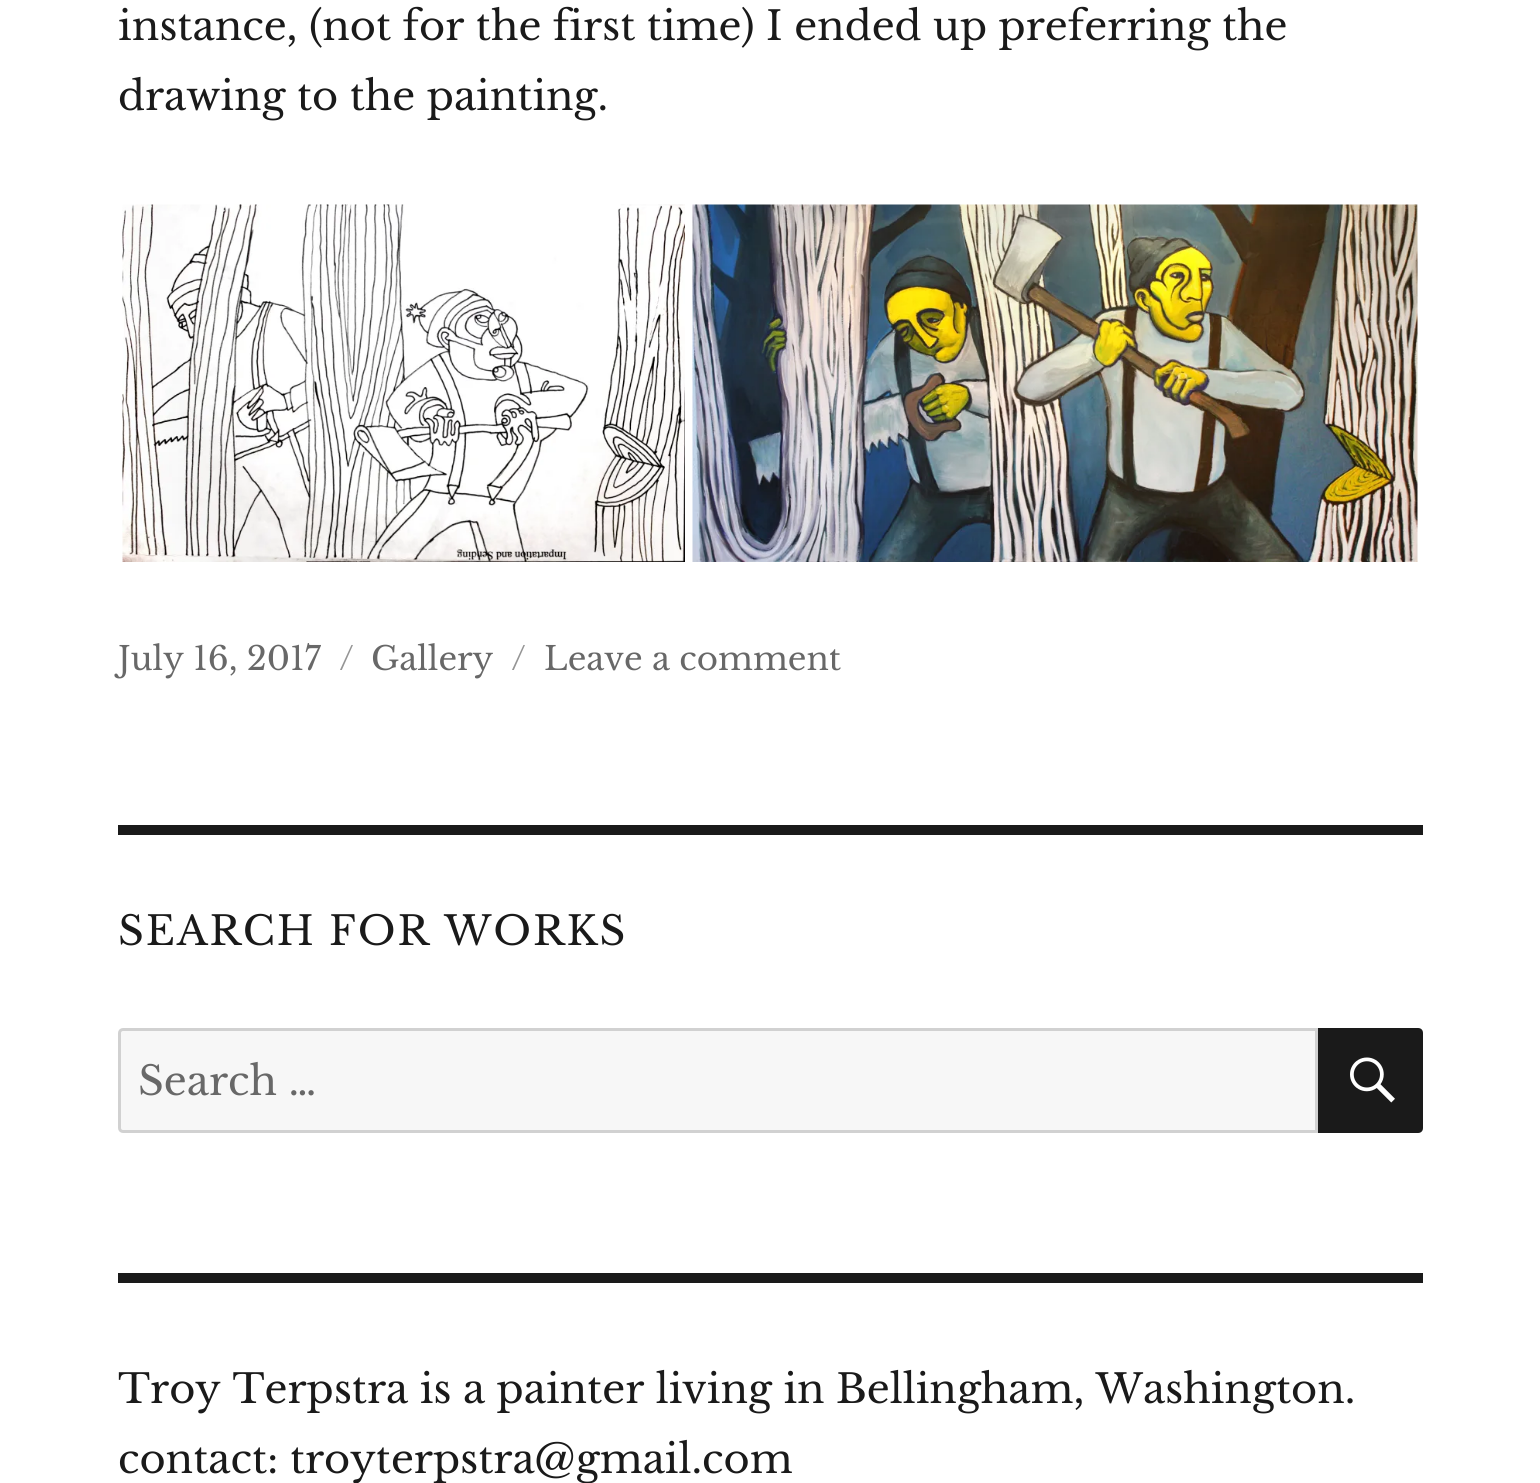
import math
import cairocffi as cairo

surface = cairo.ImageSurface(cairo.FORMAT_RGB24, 1540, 1483)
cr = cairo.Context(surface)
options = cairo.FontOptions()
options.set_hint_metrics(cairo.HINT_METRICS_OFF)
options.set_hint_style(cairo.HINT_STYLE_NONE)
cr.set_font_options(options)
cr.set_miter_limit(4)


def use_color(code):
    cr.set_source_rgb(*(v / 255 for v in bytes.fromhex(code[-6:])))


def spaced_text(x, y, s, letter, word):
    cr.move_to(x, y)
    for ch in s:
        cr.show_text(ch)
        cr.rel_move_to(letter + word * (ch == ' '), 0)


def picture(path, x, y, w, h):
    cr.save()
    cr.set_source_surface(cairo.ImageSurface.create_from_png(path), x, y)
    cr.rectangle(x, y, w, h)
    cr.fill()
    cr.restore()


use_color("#ffffff")
cr.paint()
cr.select_font_face("Libre Baskerville")
cr.set_font_size(40)
use_color("#1a1a1a")
cr.move_to(118, 40)
cr.show_text("instance, (not for the first time) I ended up preferring the")
cr.move_to(118, 110)
cr.show_text("drawing to the painting.")
picture("img1.png", 122, 204, 563, 358)
picture("img2.png", 692, 204, 726, 358)
cr.set_font_size(32.5)
use_color("#686868")
cr.move_to(118, 670)
cr.show_text("July 16, 2017")
use_color("#959595")
cr.move_to(339, 670)
cr.show_text("/")
use_color("#686868")
cr.move_to(371, 670)
cr.show_text("Gallery")
use_color("#959595")
cr.move_to(511, 670)
cr.show_text("/")
use_color("#686868")
cr.move_to(544, 670)
cr.show_text("Leave a comment")
use_color("#1a1a1a")
cr.rectangle(118, 825, 1305, 10)
cr.fill()
cr.set_font_size(40)
spaced_text(118, 945, "SEARCH FOR WORKS", 1.9, 0)
use_color("#f7f7f7")
cr.new_path()
cr.move_to(123, 1029.5)
cr.line_to(1316.5, 1029.5)
cr.line_to(1316.5, 1131.5)
cr.line_to(123, 1131.5)
cr.curve_to(121, 1131.5, 119.5, 1130, 119.5, 1128)
cr.line_to(119.5, 1033)
cr.curve_to(119.5, 1031, 121, 1029.5, 123, 1029.5)
cr.close_path()
cr.fill_preserve()
use_color("#d1d1d1")
cr.set_line_width(3)
cr.stroke()
use_color("#686868")
cr.move_to(138, 1095)
cr.show_text("Search …")
use_color("#1a1a1a")
cr.new_path()
cr.move_to(1318, 1028)
cr.line_to(1418, 1028)
cr.curve_to(1421, 1028, 1423, 1030, 1423, 1033)
cr.line_to(1423, 1128)
cr.curve_to(1423, 1131, 1421, 1133, 1418, 1133)
cr.line_to(1318, 1133)
cr.close_path()
cr.fill()
picture("img3.png", 1350, 1057, 45, 46)
cr.rectangle(118, 1273, 1305, 10)
cr.fill()
cr.move_to(118, 1403)
cr.show_text("Troy Terpstra is a painter living in Bellingham, Washington.")
cr.move_to(118, 1473)
cr.show_text("contact: troyterpstra@gmail.com")
surface.write_to_png("result.png")
